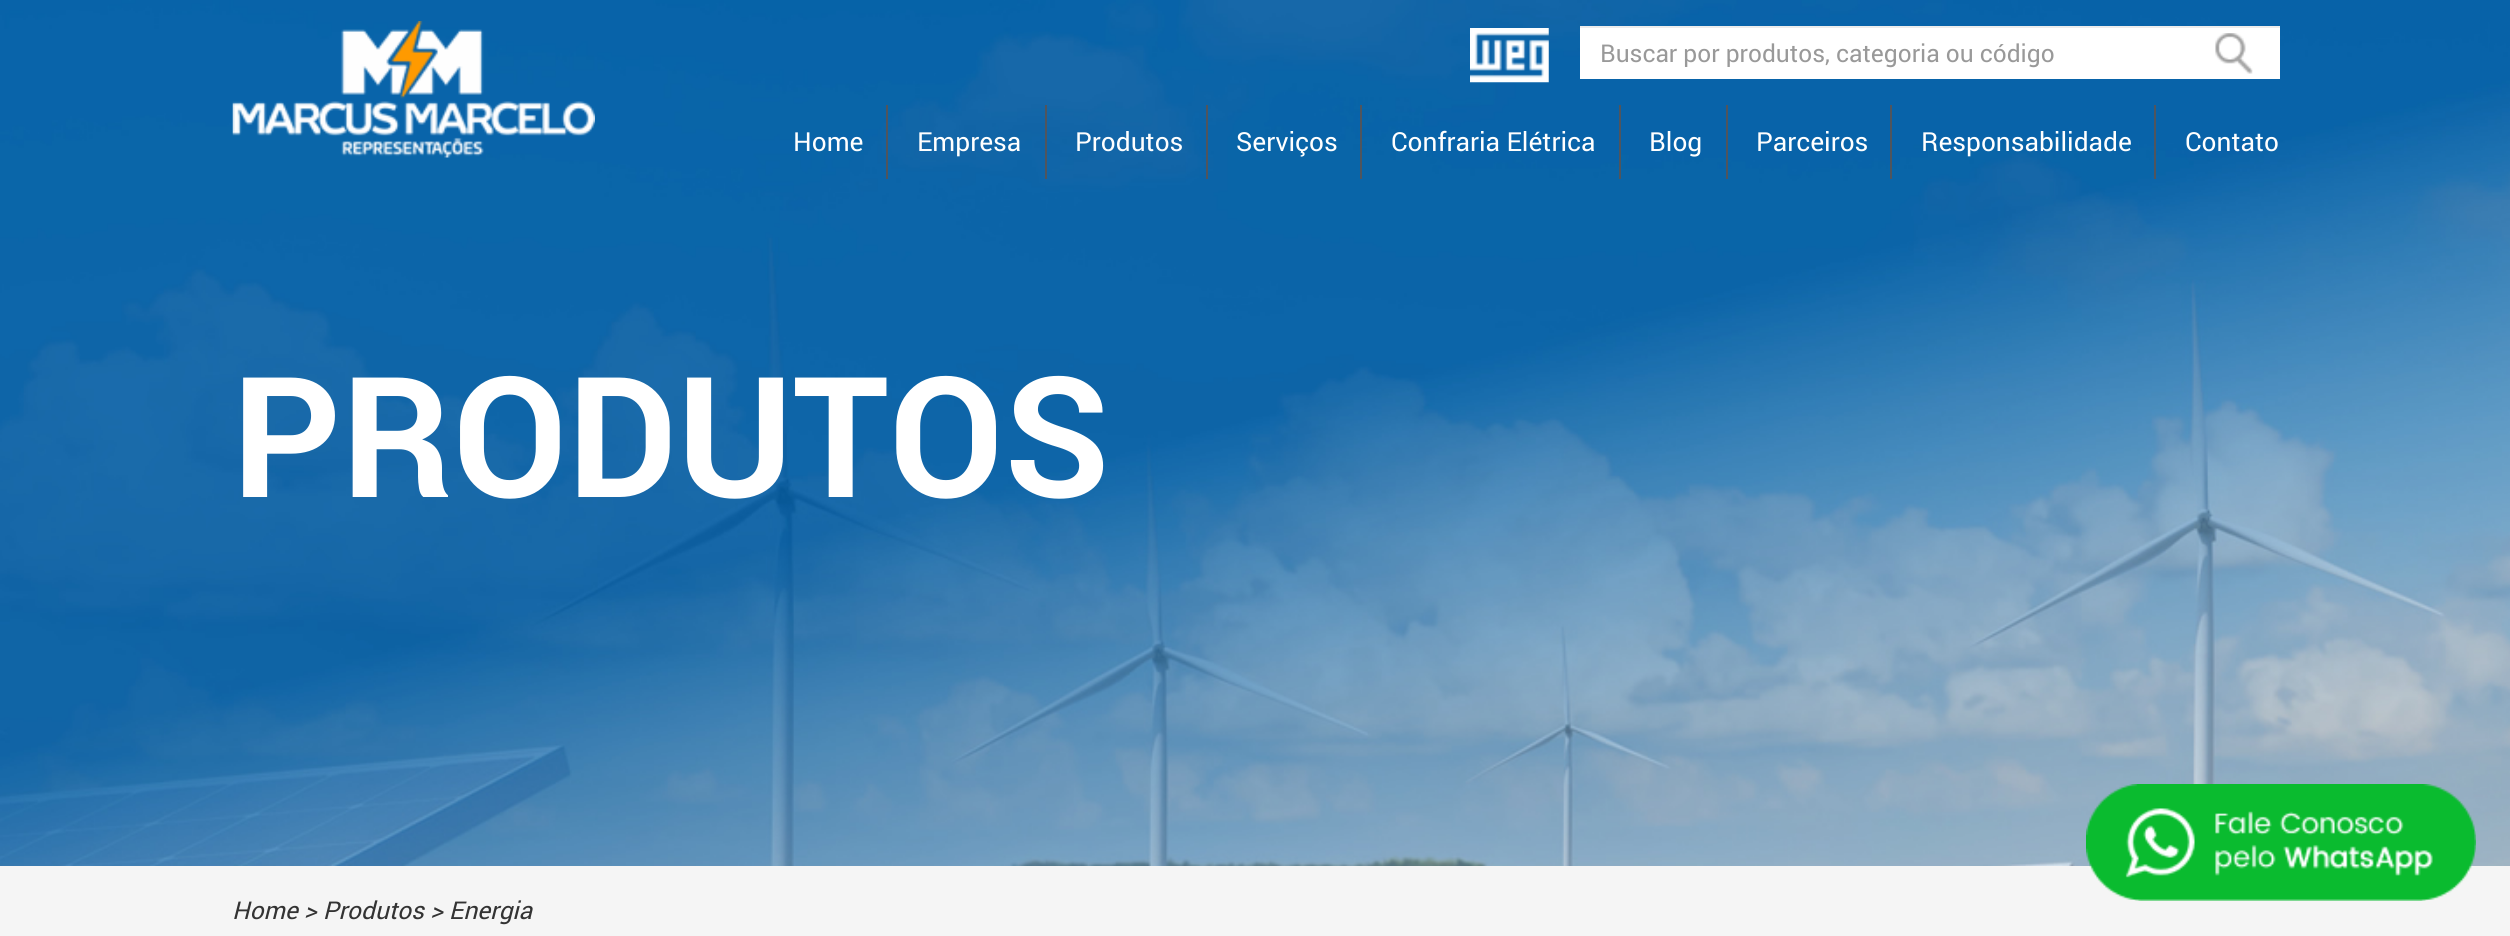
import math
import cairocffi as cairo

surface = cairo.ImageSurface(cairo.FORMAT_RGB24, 2510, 936)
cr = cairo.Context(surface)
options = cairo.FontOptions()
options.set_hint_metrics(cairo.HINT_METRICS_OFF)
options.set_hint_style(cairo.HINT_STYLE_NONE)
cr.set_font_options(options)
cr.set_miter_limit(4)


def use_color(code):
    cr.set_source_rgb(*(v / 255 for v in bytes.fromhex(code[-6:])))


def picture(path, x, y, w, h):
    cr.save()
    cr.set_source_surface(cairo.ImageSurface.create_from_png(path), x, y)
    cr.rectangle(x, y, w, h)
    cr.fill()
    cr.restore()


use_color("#ffffff")
cr.paint()
picture("img4.png", 0, 0, 2510, 866)
picture("img1.png", 232, 21, 363, 137)
picture("img2.png", 1470, 28, 79, 55)
use_color("#ffffff")
cr.rectangle(1580, 28, 700, 51)
cr.fill()
use_color("#ececec")
cr.rectangle(1580, 26, 700, 2)
cr.fill()
cr.select_font_face("Roboto")
cr.set_font_size(24.5)
use_color("#999999")
cr.move_to(1600, 62)
cr.show_text("Buscar por produtos, categoria ou código")
picture("img3.png", 2215, 33, 38, 41)
use_color("#50555d")
cr.rectangle(886, 105, 2, 74)
cr.fill()
cr.set_font_size(26.25)
use_color("#ffffff")
cr.move_to(793, 151)
cr.show_text("Home")
use_color("#50555d")
cr.rectangle(1045, 105, 2, 74)
cr.fill()
use_color("#ffffff")
cr.move_to(917, 151)
cr.show_text("Empresa")
use_color("#50555d")
cr.rectangle(1206, 105, 2, 74)
cr.fill()
use_color("#ffffff")
cr.move_to(1075, 151)
cr.show_text("Produtos")
use_color("#50555d")
cr.rectangle(1360, 105, 2, 74)
cr.fill()
use_color("#ffffff")
cr.move_to(1236, 151)
cr.show_text("Serviços")
use_color("#50555d")
cr.rectangle(1619, 105, 2, 74)
cr.fill()
use_color("#ffffff")
cr.move_to(1391, 151)
cr.show_text("Confraria Elétrica")
use_color("#50555d")
cr.rectangle(1726, 105, 2, 74)
cr.fill()
use_color("#ffffff")
cr.move_to(1649, 151)
cr.show_text("Blog")
use_color("#50555d")
cr.rectangle(1890, 105, 2, 74)
cr.fill()
use_color("#ffffff")
cr.move_to(1756, 151)
cr.show_text("Parceiros")
use_color("#50555d")
cr.rectangle(2154, 105, 2, 74)
cr.fill()
use_color("#ffffff")
cr.move_to(1921, 151)
cr.show_text("Responsabilidade")
cr.move_to(2185, 151)
cr.show_text("Contato")
cr.select_font_face("Roboto", cairo.FONT_SLANT_NORMAL, cairo.FONT_WEIGHT_BOLD)
cr.set_font_size(168)
cr.move_to(232, 497)
cr.show_text("PRODUTOS")
use_color("#f5f5f5")
cr.rectangle(0, 866, 2510, 70)
cr.fill()
picture("img5.png", 2086, 784, 390, 117)
cr.select_font_face("Roboto", cairo.FONT_SLANT_ITALIC)
cr.set_font_size(24.5)
use_color("#333333")
cr.move_to(232, 919)
cr.show_text("Home > Produtos > Energia")
surface.write_to_png("result.png")
